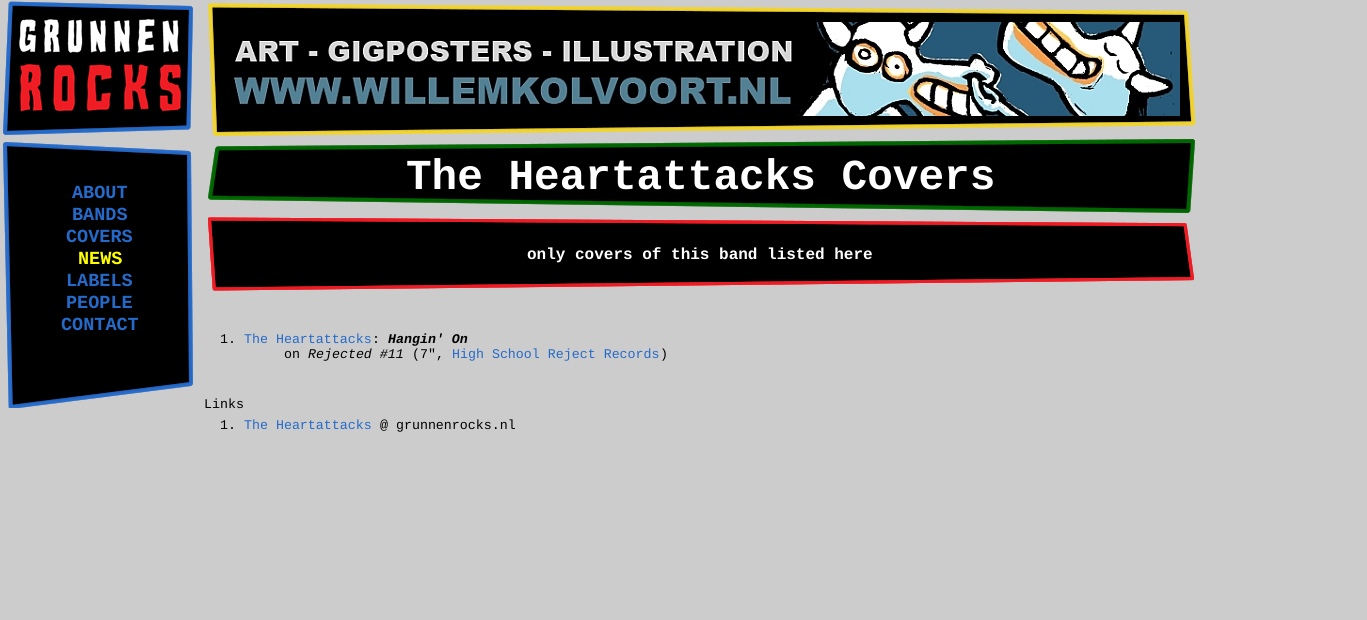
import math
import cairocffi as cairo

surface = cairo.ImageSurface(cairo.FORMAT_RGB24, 1367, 620)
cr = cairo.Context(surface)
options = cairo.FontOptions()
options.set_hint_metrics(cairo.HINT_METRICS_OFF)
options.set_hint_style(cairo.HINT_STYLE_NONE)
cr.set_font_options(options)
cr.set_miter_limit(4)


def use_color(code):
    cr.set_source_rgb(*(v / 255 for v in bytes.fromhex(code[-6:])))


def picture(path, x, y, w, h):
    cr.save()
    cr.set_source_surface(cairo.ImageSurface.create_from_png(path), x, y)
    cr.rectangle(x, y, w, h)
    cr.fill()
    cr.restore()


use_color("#cccccc")
cr.paint()
picture("img1.png", 3, 1, 190, 134)
picture("img2.png", 208, 3, 988, 133)
picture("img3.png", 233, 22, 947, 94)
picture("img4.png", 208, 139, 987, 74)
cr.select_font_face("Liberation Mono", cairo.FONT_SLANT_NORMAL, cairo.FONT_WEIGHT_BOLD)
cr.set_font_size(42.7)
use_color("#ffffff")
cr.move_to(406, 189)
cr.show_text("The Heartattacks Covers")
picture("img5.png", 3, 142, 190, 266)
cr.set_font_size(18.5)
use_color("#256ac9")
cr.move_to(72, 198)
cr.show_text("ABOUT")
cr.move_to(72, 220)
cr.show_text("BANDS")
cr.move_to(66, 242)
cr.show_text("COVERS")
use_color("#ffff00")
cr.move_to(78, 264)
cr.show_text("NEWS")
use_color("#256ac9")
cr.move_to(66, 286)
cr.show_text("LABELS")
cr.move_to(66, 308)
cr.show_text("PEOPLE")
cr.move_to(61, 330)
cr.show_text("CONTACT")
picture("img6.png", 208, 217, 986, 74)
cr.set_font_size(16)
use_color("#ffffff")
cr.move_to(527, 259)
cr.show_text("only covers of this band listed here")
cr.select_font_face("Liberation Mono")
cr.set_font_size(13.3)
use_color("#000000")
cr.move_to(220, 343)
cr.show_text("1.")
use_color("#256ac9")
cr.move_to(244, 343)
cr.show_text("The Heartattacks")
use_color("#000000")
cr.move_to(372, 343)
cr.show_text(":")
cr.select_font_face("Liberation Mono", cairo.FONT_SLANT_ITALIC, cairo.FONT_WEIGHT_BOLD)
cr.move_to(388, 343)
cr.show_text("Hangin' On")
cr.select_font_face("Liberation Mono")
cr.move_to(284, 358)
cr.show_text("on")
cr.select_font_face("Liberation Mono", cairo.FONT_SLANT_ITALIC)
cr.move_to(308, 358)
cr.show_text("Rejected #11")
cr.select_font_face("Liberation Mono")
cr.move_to(412, 358)
cr.show_text("(7\",")
use_color("#256ac9")
cr.move_to(452, 358)
cr.show_text("High School Reject Records")
use_color("#000000")
cr.move_to(660, 358)
cr.show_text(")")
cr.move_to(204, 408)
cr.show_text("Links")
cr.move_to(220, 429)
cr.show_text("1.")
use_color("#256ac9")
cr.move_to(244, 429)
cr.show_text("The Heartattacks")
use_color("#000000")
cr.move_to(380, 429)
cr.show_text("@ grunnenrocks.nl")
surface.write_to_png("result.png")
